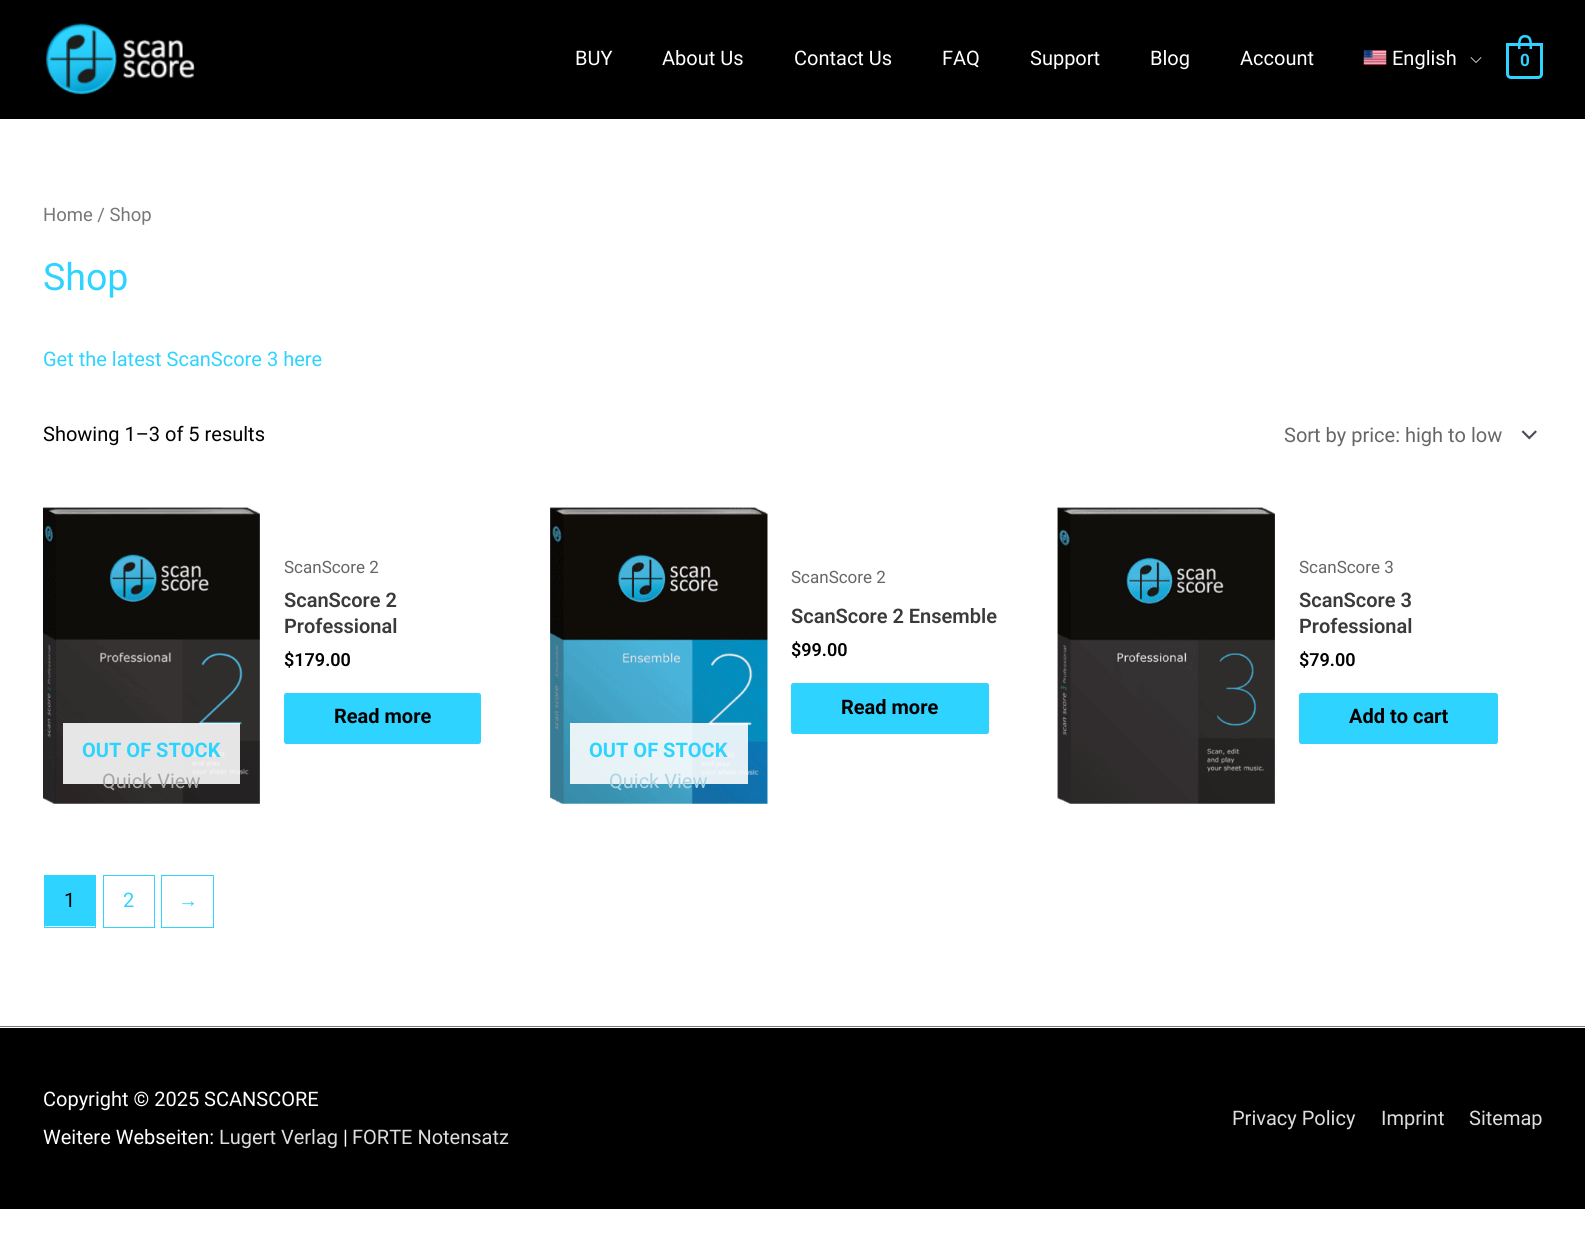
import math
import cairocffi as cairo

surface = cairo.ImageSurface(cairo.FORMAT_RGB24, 1585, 1233)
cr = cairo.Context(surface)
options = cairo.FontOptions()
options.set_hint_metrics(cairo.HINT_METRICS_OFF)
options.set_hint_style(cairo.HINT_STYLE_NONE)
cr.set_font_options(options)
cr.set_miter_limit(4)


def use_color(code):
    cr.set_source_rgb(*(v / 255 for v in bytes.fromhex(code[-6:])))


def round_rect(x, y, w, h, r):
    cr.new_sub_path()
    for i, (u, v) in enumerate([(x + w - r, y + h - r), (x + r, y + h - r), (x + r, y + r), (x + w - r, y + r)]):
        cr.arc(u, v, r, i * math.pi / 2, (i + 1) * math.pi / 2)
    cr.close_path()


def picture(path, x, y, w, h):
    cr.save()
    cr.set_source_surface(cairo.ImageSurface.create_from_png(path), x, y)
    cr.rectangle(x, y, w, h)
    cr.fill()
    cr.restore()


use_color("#ffffff")
cr.paint()
use_color("#000000")
cr.rectangle(0, 0, 1585, 119)
cr.fill()
picture("img1.png", 46, 23, 149, 72)
cr.select_font_face("Roboto")
cr.set_font_size(20)
use_color("#ffffff")
cr.move_to(575, 65)
cr.show_text("BUY")
cr.move_to(662, 65)
cr.show_text("About Us")
cr.move_to(794, 65)
cr.show_text("Contact Us")
cr.move_to(942, 65)
cr.show_text("FAQ")
cr.move_to(1030, 65)
cr.show_text("Support")
cr.move_to(1150, 65)
cr.show_text("Blog")
cr.move_to(1240, 65)
cr.show_text("Account")
picture("img2.png", 1363, 50, 24, 15)
cr.move_to(1392, 65)
cr.show_text("English")
picture("img3.png", 1470, 57, 12, 6)
cr.new_path()
cr.move_to(1507.5, 44.5)
cr.line_to(1541.5, 44.5)
cr.line_to(1541.5, 74)
cr.curve_to(1541.5, 76, 1540, 77.5, 1538, 77.5)
cr.line_to(1511, 77.5)
cr.curve_to(1509, 77.5, 1507.5, 76, 1507.5, 74)
cr.close_path()
use_color("#2ed3ff")
cr.set_line_width(3)
cr.stroke()
cr.set_fill_rule(cairo.FILL_RULE_EVEN_ODD)
cr.new_path()
cr.move_to(1525, 35)
cr.curve_to(1533, 35, 1532, 43.5, 1532, 49)
cr.line_to(1518, 49)
cr.curve_to(1518, 43.5, 1517, 35, 1525, 35)
cr.close_path()
cr.move_to(1525, 37.5)
cr.curve_to(1530.5, 37.5, 1529.5, 45, 1529.5, 49)
cr.line_to(1520.5, 49)
cr.curve_to(1520.5, 45, 1519.5, 37.5, 1525, 37.5)
cr.close_path()
cr.fill()
cr.select_font_face("Roboto", cairo.FONT_SLANT_NORMAL, cairo.FONT_WEIGHT_BOLD)
cr.set_font_size(17)
cr.move_to(1520, 66)
cr.show_text("0")
cr.select_font_face("Roboto")
cr.set_font_size(18.5)
use_color("#777777")
cr.move_to(43, 221)
cr.show_text("Home / Shop")
cr.set_font_size(37.5)
use_color("#2ed3ff")
cr.move_to(43, 290)
cr.show_text("Shop")
cr.set_font_size(20)
cr.move_to(43, 366)
cr.show_text("Get the latest ScanScore 3 here")
use_color("#000000")
cr.move_to(43, 441)
cr.show_text("Showing 1–3 of 5 results")
picture("img4.png", 1521, 430, 16, 10)
use_color("#666666")
cr.move_to(1284, 442)
cr.show_text("Sort by price: high to low")
cr.set_font_size(17)
cr.move_to(284, 573)
cr.show_text("ScanScore 2")
cr.select_font_face("Roboto SemiBold")
cr.set_font_size(20)
use_color("#3a3a3a")
cr.move_to(284, 607)
cr.show_text("ScanScore 2")
cr.move_to(284, 633)
cr.show_text("Professional")
cr.set_font_size(18)
use_color("#000000")
cr.move_to(284, 666)
cr.show_text("$179.00")
use_color("#2ed3ff")
round_rect(284, 693, 197, 51, 2.5)
cr.fill()
cr.select_font_face("Roboto", cairo.FONT_SLANT_NORMAL, cairo.FONT_WEIGHT_BOLD)
cr.set_font_size(20)
use_color("#000000")
cr.move_to(334, 723)
cr.show_text("Read more")
picture("img5.png", 43, 507, 217, 297)
cr.set_source_rgba(1, 1, 1, 0.88)
cr.rectangle(63, 723, 177, 61)
cr.fill()
use_color("#2ed3ff")
cr.move_to(82, 757)
cr.show_text("OUT OF STOCK")
cr.select_font_face("Roboto")
use_color("#a7a6a6")
cr.move_to(102, 788)
cr.show_text("Quick View")
cr.set_font_size(17)
use_color("#666666")
cr.move_to(791, 583)
cr.show_text("ScanScore 2")
cr.select_font_face("Roboto SemiBold")
cr.set_font_size(20)
use_color("#3a3a3a")
cr.move_to(791, 623)
cr.show_text("ScanScore 2 Ensemble")
cr.set_font_size(18)
use_color("#000000")
cr.move_to(791, 656)
cr.show_text("$99.00")
use_color("#2ed3ff")
round_rect(791, 683, 198, 51, 2.5)
cr.fill()
cr.select_font_face("Roboto", cairo.FONT_SLANT_NORMAL, cairo.FONT_WEIGHT_BOLD)
cr.set_font_size(20)
use_color("#000000")
cr.move_to(841, 714)
cr.show_text("Read more")
picture("img6.png", 550, 507, 218, 297)
cr.set_source_rgba(1, 1, 1, 0.88)
cr.rectangle(570, 723, 178, 61)
cr.fill()
use_color("#2ed3ff")
cr.move_to(589, 757)
cr.show_text("OUT OF STOCK")
cr.select_font_face("Roboto")
use_color("#acd3e2")
cr.move_to(609, 788)
cr.show_text("Quick View")
picture("img7.png", 1057, 507, 218, 297)
cr.set_font_size(17)
use_color("#666666")
cr.move_to(1299, 573)
cr.show_text("ScanScore 3")
cr.select_font_face("Roboto SemiBold")
cr.set_font_size(20)
use_color("#3a3a3a")
cr.move_to(1299, 607)
cr.show_text("ScanScore 3")
cr.move_to(1299, 633)
cr.show_text("Professional")
cr.set_font_size(18)
use_color("#000000")
cr.move_to(1299, 666)
cr.show_text("$79.00")
use_color("#2ed3ff")
round_rect(1299, 693, 199, 51, 2.5)
cr.fill()
cr.select_font_face("Roboto", cairo.FONT_SLANT_NORMAL, cairo.FONT_WEIGHT_BOLD)
cr.set_font_size(20)
use_color("#000000")
cr.move_to(1349, 723)
cr.show_text("Add to cart")
cr.rectangle(44.5, 875.5, 51, 52)
use_color("#2ed3ff")
cr.set_line_width(1)
cr.stroke()
cr.rectangle(45, 876, 50, 50)
cr.fill()
cr.select_font_face("Roboto")
use_color("#000000")
cr.move_to(64, 907)
cr.show_text("1")
cr.rectangle(103.5, 875.5, 51, 52)
use_color("#2ed3ff")
cr.stroke()
cr.move_to(123, 907)
cr.show_text("2")
cr.rectangle(161.5, 875.5, 52, 52)
cr.stroke()
cr.select_font_face("Liberation Sans")
cr.move_to(178, 907)
cr.show_text("→")
use_color("#7a7a7a")
cr.rectangle(0, 1026, 1585, 1)
cr.fill()
use_color("#000000")
cr.rectangle(0, 1028, 1585, 181)
cr.fill()
cr.select_font_face("Roboto")
use_color("#ffffff")
cr.move_to(43, 1106)
cr.show_text("Copyright © 2025 SCANSCORE")
cr.move_to(43, 1144)
cr.show_text("Weitere Webseiten:")
use_color("#dddddd")
cr.move_to(219, 1144)
cr.show_text("Lugert Verlag")
use_color("#ffffff")
cr.move_to(343, 1144)
cr.show_text("|")
use_color("#dddddd")
cr.move_to(352, 1144)
cr.show_text("FORTE Notensatz")
cr.move_to(1232, 1125)
cr.show_text("Privacy Policy")
cr.move_to(1381, 1125)
cr.show_text("Imprint")
cr.move_to(1469, 1125)
cr.show_text("Sitemap")
surface.write_to_png("result.png")
